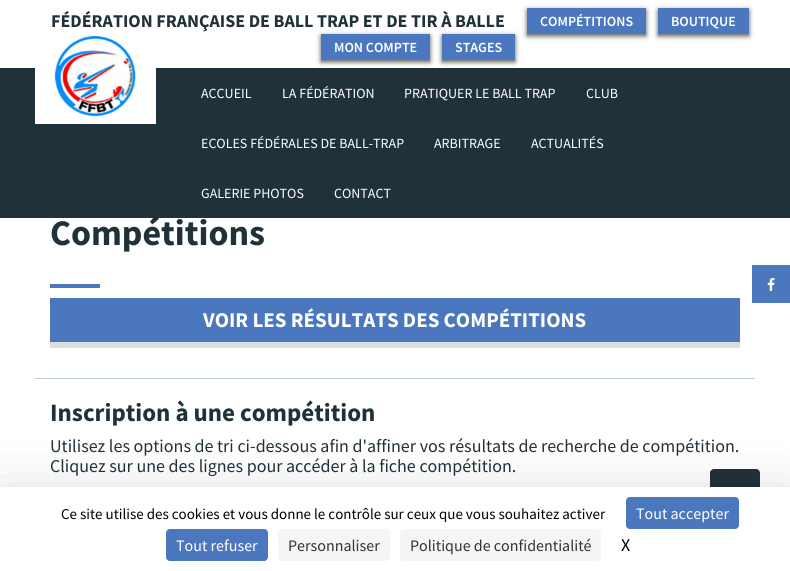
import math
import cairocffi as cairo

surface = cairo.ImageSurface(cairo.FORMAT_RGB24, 790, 571)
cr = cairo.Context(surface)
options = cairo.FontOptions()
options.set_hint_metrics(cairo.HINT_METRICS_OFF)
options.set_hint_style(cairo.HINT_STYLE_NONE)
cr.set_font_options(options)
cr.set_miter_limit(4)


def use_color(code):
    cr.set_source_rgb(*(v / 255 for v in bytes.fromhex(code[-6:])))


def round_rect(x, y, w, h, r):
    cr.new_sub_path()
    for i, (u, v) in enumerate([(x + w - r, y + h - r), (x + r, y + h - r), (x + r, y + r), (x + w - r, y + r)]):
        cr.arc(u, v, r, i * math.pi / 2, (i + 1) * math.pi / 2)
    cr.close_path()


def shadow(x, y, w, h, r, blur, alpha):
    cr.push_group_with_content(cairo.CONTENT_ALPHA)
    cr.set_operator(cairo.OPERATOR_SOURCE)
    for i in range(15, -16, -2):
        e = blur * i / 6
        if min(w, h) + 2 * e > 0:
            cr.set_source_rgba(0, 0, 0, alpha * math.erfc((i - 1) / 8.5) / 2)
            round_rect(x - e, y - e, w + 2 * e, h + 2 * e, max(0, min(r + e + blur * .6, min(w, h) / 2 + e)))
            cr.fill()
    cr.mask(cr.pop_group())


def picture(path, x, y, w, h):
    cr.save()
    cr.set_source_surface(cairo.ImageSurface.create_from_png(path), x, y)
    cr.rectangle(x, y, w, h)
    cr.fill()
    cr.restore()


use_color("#ffffff")
cr.paint()
use_color("#555555")
shadow(321, 36, 109, 26, 0, 2.5, 1)
shadow(442, 36, 73, 26, 0, 2.5, 1)
cr.select_font_face("Source Sans Pro", cairo.FONT_SLANT_NORMAL, cairo.FONT_WEIGHT_BOLD)
cr.set_font_size(18)
use_color("#21313a")
cr.move_to(51, 27)
cr.show_text("FÉDÉRATION FRANÇAISE DE BALL TRAP ET DE TIR À BALLE")
use_color("#555555")
shadow(527, 10, 119, 26, 0, 2.5, 1)
use_color("#4b77be")
cr.rectangle(527, 8, 119, 26)
cr.fill()
cr.select_font_face("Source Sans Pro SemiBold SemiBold")
cr.set_font_size(14)
use_color("#ffffff")
cr.move_to(540, 26)
cr.show_text("COMPÉTITIONS")
use_color("#555555")
shadow(658, 10, 91, 26, 0, 2.5, 1)
use_color("#4b77be")
cr.rectangle(658, 8, 91, 26)
cr.fill()
use_color("#ffffff")
cr.move_to(671, 26)
cr.show_text("BOUTIQUE")
use_color("#4b77be")
cr.rectangle(321, 34, 109, 26)
cr.fill()
use_color("#ffffff")
cr.move_to(334, 52)
cr.show_text("MON COMPTE")
use_color("#4b77be")
cr.rectangle(442, 34, 73, 26)
cr.fill()
use_color("#ffffff")
cr.move_to(455, 52)
cr.show_text("STAGES")
use_color("#21313a")
cr.rectangle(0, 68, 790, 150)
cr.fill()
use_color("#ffffff")
cr.rectangle(35, 68, 121, 56)
cr.fill()
picture("img1.png", 54, 35, 82, 81)
cr.select_font_face("Source Sans Pro")
cr.move_to(201, 98)
cr.show_text("ACCUEIL")
cr.move_to(282, 98)
cr.show_text("LA FÉDÉRATION")
cr.move_to(404, 98)
cr.show_text("PRATIQUER LE BALL TRAP")
cr.move_to(586, 98)
cr.show_text("CLUB")
cr.move_to(201, 148)
cr.show_text("ECOLES FÉDÉRALES DE BALL-TRAP")
cr.move_to(434, 148)
cr.show_text("ARBITRAGE")
cr.move_to(531, 148)
cr.show_text("ACTUALITÉS")
cr.move_to(201, 198)
cr.show_text("GALERIE PHOTOS")
cr.move_to(334, 198)
cr.show_text("CONTACT")
cr.select_font_face("Source Sans Pro", cairo.FONT_SLANT_NORMAL, cairo.FONT_WEIGHT_BOLD)
cr.set_font_size(36)
use_color("#21313a")
cr.move_to(50, 245)
cr.show_text("Compétitions")
use_color("#4b77be")
cr.rectangle(50, 284, 50, 4)
cr.fill()
cr.rectangle(50, 298, 690, 44)
cr.fill()
use_color("#dddddd")
cr.rectangle(50, 342, 690, 6)
cr.fill()
cr.set_font_size(21)
use_color("#ffffff")
cr.move_to(203, 327)
cr.show_text("VOIR LES RÉSULTATS DES COMPÉTITIONS")
use_color("#b9ccd7")
cr.rectangle(35, 378, 720, 1)
cr.fill()
cr.set_font_size(25)
use_color("#21313a")
cr.move_to(50, 421)
cr.show_text("Inscription à une compétition")
cr.select_font_face("Source Sans Pro")
cr.set_font_size(18)
cr.move_to(50, 452)
cr.show_text("Utilisez les options de tri ci-dessous afin d'affiner vos résultats de recherche de compétition.")
cr.move_to(50, 472)
cr.show_text("Cliquez sur une des lignes pour accéder à la fiche compétition.")
use_color("#4b77be")
cr.rectangle(752, 265, 38, 38)
cr.fill()
picture("img2.png", 767, 278, 8, 13)
use_color("#21313a")
round_rect(710, 469, 50, 50, 4)
cr.fill()
use_color("#000000")
shadow(0, 507, 790, 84, 0, 30, 0.25)
use_color("#ffffff")
cr.rectangle(0, 487, 790, 84)
cr.fill()
cr.set_font_size(15)
use_color("#000000")
cr.move_to(61, 519)
cr.show_text("Ce site utilise des cookies et vous donne le contrôle sur ceux que vous souhaitez activer")
use_color("#4b77be")
round_rect(626, 497, 113, 32, 4)
cr.fill()
cr.set_font_size(16)
use_color("#ffffff")
cr.move_to(636, 519)
cr.show_text("Tout accepter")
use_color("#4b77be")
round_rect(166, 529, 102, 32, 4)
cr.fill()
use_color("#ffffff")
cr.move_to(176, 551)
cr.show_text("Tout refuser")
use_color("#f5f5f5")
round_rect(278, 529, 112, 32, 4)
cr.fill()
use_color("#333333")
cr.move_to(288, 551)
cr.show_text("Personnaliser")
use_color("#f5f5f5")
round_rect(400, 529, 201, 32, 4)
cr.fill()
use_color("#333333")
cr.move_to(410, 551)
cr.show_text("Politique de confidentialité")
cr.set_font_size(18)
use_color("#000000")
cr.move_to(621, 551)
cr.show_text("X")
surface.write_to_png("result.png")
